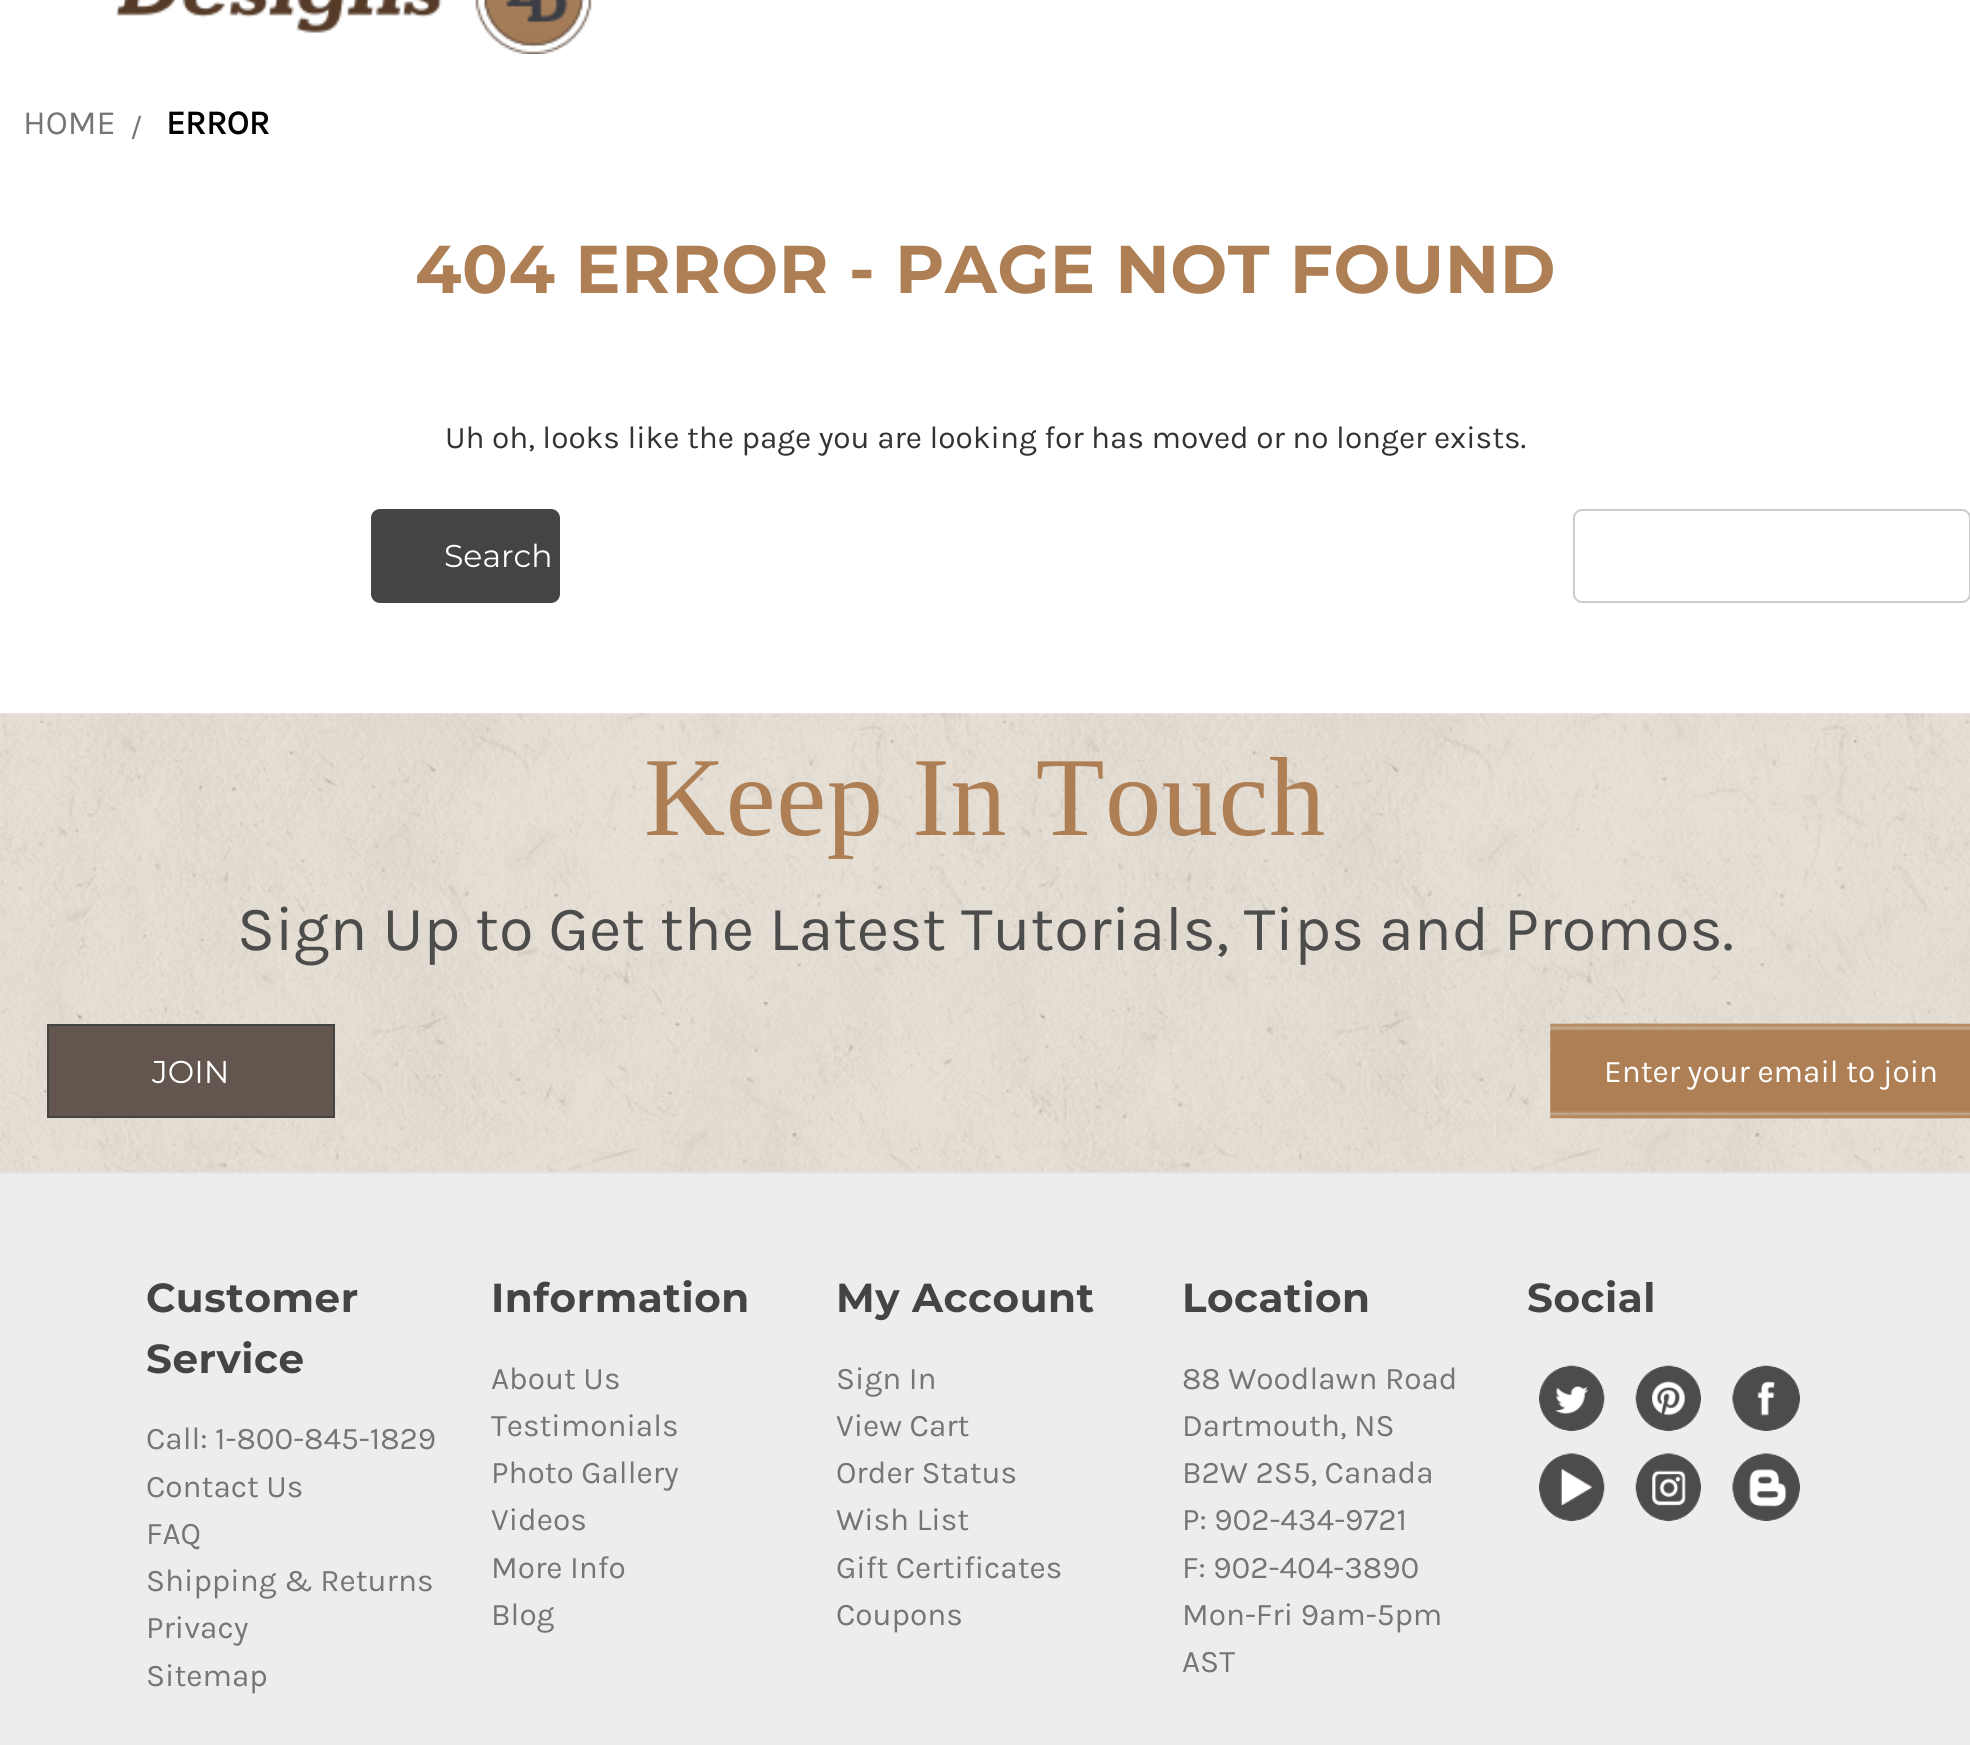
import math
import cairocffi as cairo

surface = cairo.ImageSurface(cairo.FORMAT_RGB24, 1970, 1745)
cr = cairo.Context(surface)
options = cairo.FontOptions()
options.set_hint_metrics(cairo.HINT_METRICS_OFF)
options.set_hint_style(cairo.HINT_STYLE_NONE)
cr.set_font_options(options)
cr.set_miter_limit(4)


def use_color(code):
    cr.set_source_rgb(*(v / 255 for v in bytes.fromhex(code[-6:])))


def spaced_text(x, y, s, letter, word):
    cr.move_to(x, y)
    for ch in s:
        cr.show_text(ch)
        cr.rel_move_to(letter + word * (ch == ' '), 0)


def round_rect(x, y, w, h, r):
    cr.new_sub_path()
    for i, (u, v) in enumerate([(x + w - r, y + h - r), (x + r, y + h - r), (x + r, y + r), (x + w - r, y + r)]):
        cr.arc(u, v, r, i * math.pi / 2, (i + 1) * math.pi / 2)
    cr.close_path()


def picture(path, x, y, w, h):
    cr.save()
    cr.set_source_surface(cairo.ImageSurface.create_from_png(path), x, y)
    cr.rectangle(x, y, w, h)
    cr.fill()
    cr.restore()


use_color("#ffffff")
cr.paint()
picture("img1.png", 115, 0, 477, 54)
cr.select_font_face("Karla")
cr.set_font_size(34)
use_color("#757575")
cr.move_to(23, 134)
cr.show_text("HOME")
cr.set_font_size(29)
cr.move_to(130, 137)
cr.show_text("/")
cr.select_font_face("Karla", cairo.FONT_SLANT_NORMAL, cairo.FONT_WEIGHT_BOLD)
cr.set_font_size(34)
use_color("#000000")
cr.move_to(166, 134)
cr.show_text("ERROR")
cr.select_font_face("Montserrat", cairo.FONT_SLANT_NORMAL, cairo.FONT_WEIGHT_BOLD)
cr.set_font_size(67.5)
use_color("#ae7f54")
spaced_text(415, 293, "404 ERROR - PAGE NOT FOUND", 0.55, 0)
cr.select_font_face("Karla")
cr.set_font_size(31.5)
use_color("#333333")
cr.move_to(445, 448)
cr.show_text("Uh oh, looks like the page you are looking for has moved or no longer exists.")
use_color("#444444")
round_rect(372, 510, 187, 92, 8)
cr.fill_preserve()
cr.stroke()
cr.select_font_face("Montserrat")
use_color("#ffffff")
cr.move_to(444, 567)
cr.show_text("Search")
round_rect(1574, 510, 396, 92, 8)
use_color("#cccccc")
cr.stroke()
picture("img2.png", 0, 713, 1970, 459)
cr.select_font_face("Liberation Serif")
cr.set_font_size(112.5)
use_color("#ae7f54")
spaced_text(644, 835, "Keep In Touch", 0.55, 0)
cr.select_font_face("Karla")
cr.set_font_size(63)
use_color("#4c4c4b")
cr.move_to(237, 950)
cr.show_text("Sign Up to Get the Latest Tutorials, Tips and Promos.")
use_color("#63564f")
cr.rectangle(48, 1025, 286, 92)
cr.fill_preserve()
use_color("#444444")
cr.stroke()
cr.select_font_face("Montserrat")
cr.set_font_size(31.5)
use_color("#ffffff")
cr.move_to(152, 1083)
cr.show_text("JOIN")
picture("img3.png", 1550, 1023, 399, 96)
picture("img4.png", 1572, 1023, 398, 96)
cr.select_font_face("Karla")
cr.move_to(1604, 1082)
cr.show_text("Enter your email to join")
use_color("#ededed")
cr.rectangle(0, 1174, 1970, 571)
cr.fill()
use_color("#e5e5e5")
cr.rectangle(0, 1172, 1970, 2)
cr.fill()
cr.select_font_face("Montserrat", cairo.FONT_SLANT_NORMAL, cairo.FONT_WEIGHT_BOLD)
cr.set_font_size(40.5)
use_color("#444444")
spaced_text(146, 1312, "Customer", 0.55, 0)
spaced_text(146, 1373, "Service", 0.55, 0)
cr.select_font_face("Karla")
cr.set_font_size(31.5)
use_color("#757575")
cr.move_to(146, 1449)
cr.show_text("Call: 1-800-845-1829")
cr.move_to(146, 1497)
cr.show_text("Contact Us")
cr.move_to(146, 1544)
cr.show_text("FAQ")
cr.move_to(146, 1591)
cr.show_text("Shipping & Returns")
cr.move_to(146, 1638)
cr.show_text("Privacy")
cr.move_to(146, 1686)
cr.show_text("Sitemap")
cr.select_font_face("Montserrat", cairo.FONT_SLANT_NORMAL, cairo.FONT_WEIGHT_BOLD)
cr.set_font_size(40.5)
use_color("#444444")
spaced_text(491, 1312, "Information", 0.55, 0)
cr.select_font_face("Karla")
cr.set_font_size(31.5)
use_color("#757575")
cr.move_to(491, 1389)
cr.show_text("About Us")
cr.move_to(491, 1436)
cr.show_text("Testimonials")
cr.move_to(491, 1483)
cr.show_text("Photo Gallery")
cr.move_to(491, 1530)
cr.show_text("Videos")
cr.move_to(491, 1578)
cr.show_text("More Info")
cr.move_to(491, 1625)
cr.show_text("Blog")
cr.select_font_face("Montserrat", cairo.FONT_SLANT_NORMAL, cairo.FONT_WEIGHT_BOLD)
cr.set_font_size(40.5)
use_color("#444444")
spaced_text(836, 1312, "My Account", 0.55, 0)
cr.select_font_face("Karla")
cr.set_font_size(31.5)
use_color("#757575")
cr.move_to(836, 1389)
cr.show_text("Sign In")
cr.move_to(836, 1436)
cr.show_text("View Cart")
cr.move_to(836, 1483)
cr.show_text("Order Status")
cr.move_to(836, 1530)
cr.show_text("Wish List")
cr.move_to(836, 1578)
cr.show_text("Gift Certificates")
cr.move_to(836, 1625)
cr.show_text("Coupons")
cr.select_font_face("Montserrat", cairo.FONT_SLANT_NORMAL, cairo.FONT_WEIGHT_BOLD)
cr.set_font_size(40.5)
use_color("#444444")
spaced_text(1182, 1312, "Location", 0.55, 0)
cr.select_font_face("Karla")
cr.set_font_size(31.5)
use_color("#757575")
cr.move_to(1182, 1389)
cr.show_text("88 Woodlawn Road")
cr.move_to(1182, 1436)
cr.show_text("Dartmouth, NS")
cr.move_to(1182, 1483)
cr.show_text("B2W 2S5, Canada")
cr.move_to(1182, 1530)
cr.show_text("P: 902-434-9721")
cr.move_to(1182, 1578)
cr.show_text("F: 902-404-3890")
cr.move_to(1182, 1625)
cr.show_text("Mon-Fri 9am-5pm")
cr.move_to(1182, 1672)
cr.show_text("AST")
cr.select_font_face("Montserrat", cairo.FONT_SLANT_NORMAL, cairo.FONT_WEIGHT_BOLD)
cr.set_font_size(40.5)
use_color("#444444")
spaced_text(1527, 1312, "Social", 0.55, 0)
picture("img5.png", 1539, 1365, 66, 66)
picture("img6.png", 1635, 1365, 66, 66)
picture("img7.png", 1732, 1365, 68, 66)
picture("img8.png", 1539, 1453, 66, 68)
picture("img9.png", 1635, 1453, 66, 68)
picture("img10.png", 1732, 1453, 68, 68)
surface.write_to_png("result.png")
